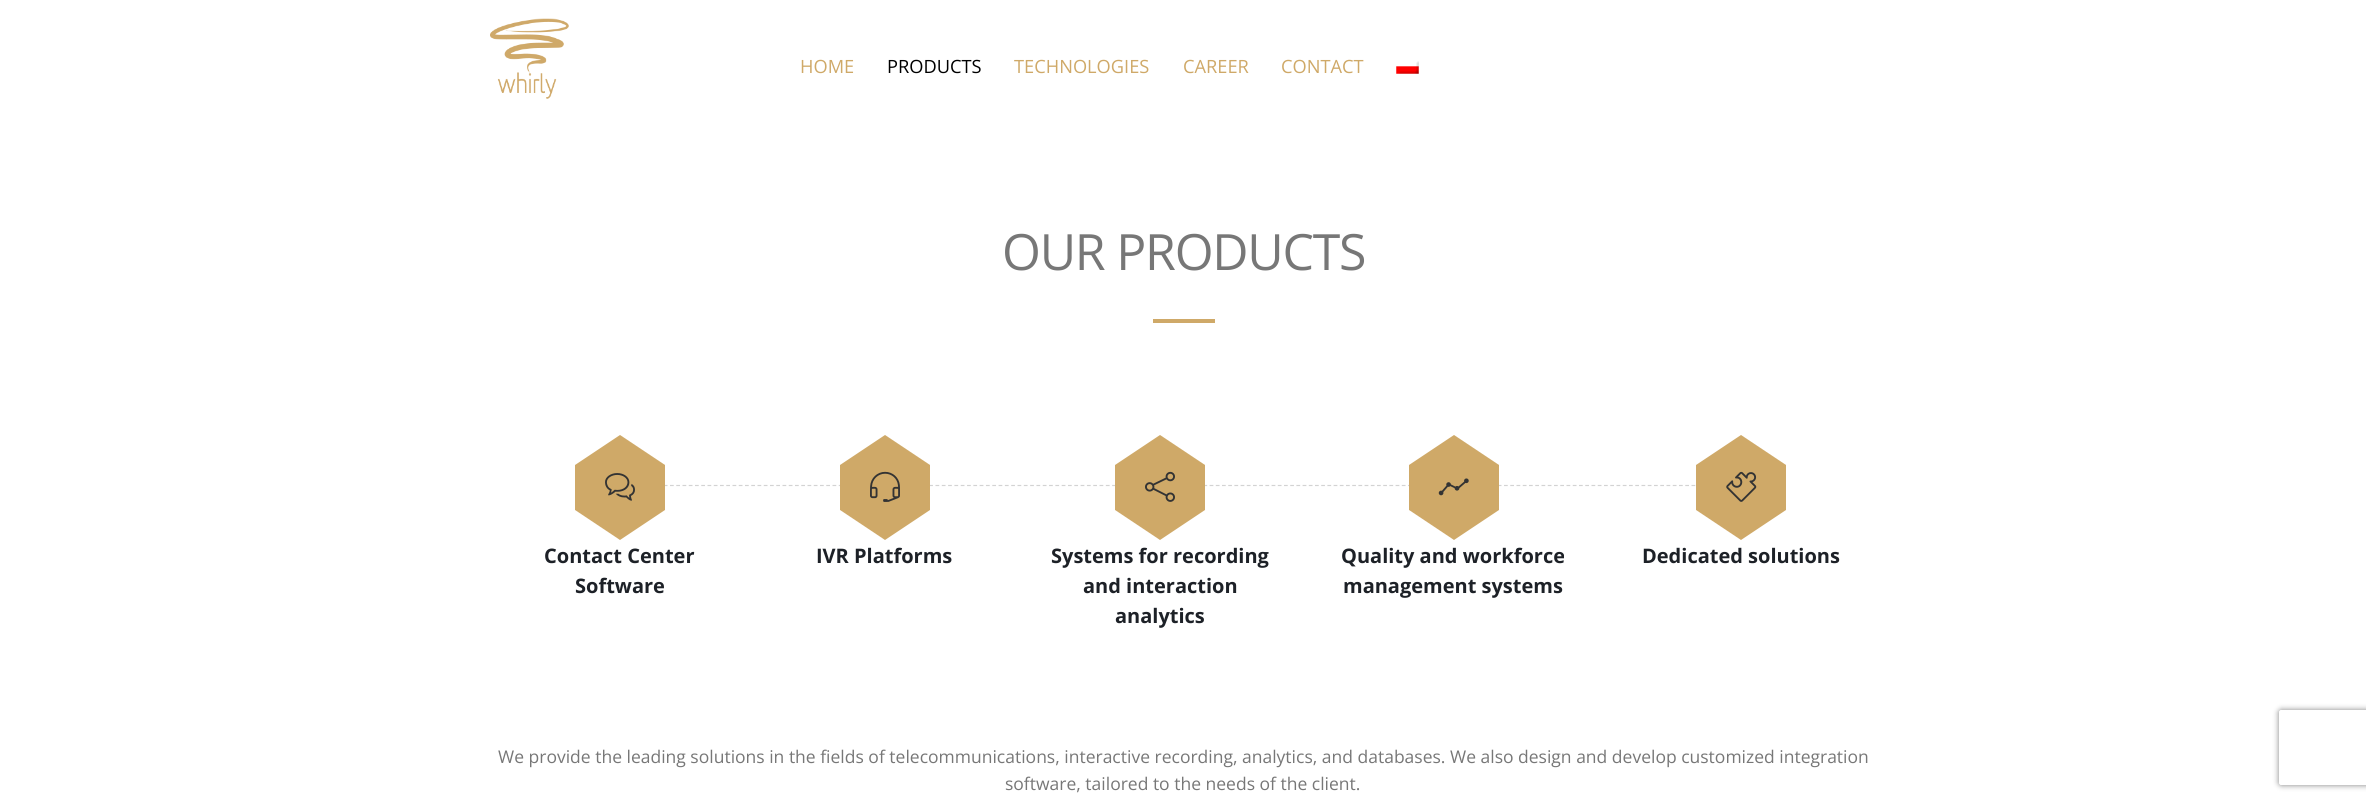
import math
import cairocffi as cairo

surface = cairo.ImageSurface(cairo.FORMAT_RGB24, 2366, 802)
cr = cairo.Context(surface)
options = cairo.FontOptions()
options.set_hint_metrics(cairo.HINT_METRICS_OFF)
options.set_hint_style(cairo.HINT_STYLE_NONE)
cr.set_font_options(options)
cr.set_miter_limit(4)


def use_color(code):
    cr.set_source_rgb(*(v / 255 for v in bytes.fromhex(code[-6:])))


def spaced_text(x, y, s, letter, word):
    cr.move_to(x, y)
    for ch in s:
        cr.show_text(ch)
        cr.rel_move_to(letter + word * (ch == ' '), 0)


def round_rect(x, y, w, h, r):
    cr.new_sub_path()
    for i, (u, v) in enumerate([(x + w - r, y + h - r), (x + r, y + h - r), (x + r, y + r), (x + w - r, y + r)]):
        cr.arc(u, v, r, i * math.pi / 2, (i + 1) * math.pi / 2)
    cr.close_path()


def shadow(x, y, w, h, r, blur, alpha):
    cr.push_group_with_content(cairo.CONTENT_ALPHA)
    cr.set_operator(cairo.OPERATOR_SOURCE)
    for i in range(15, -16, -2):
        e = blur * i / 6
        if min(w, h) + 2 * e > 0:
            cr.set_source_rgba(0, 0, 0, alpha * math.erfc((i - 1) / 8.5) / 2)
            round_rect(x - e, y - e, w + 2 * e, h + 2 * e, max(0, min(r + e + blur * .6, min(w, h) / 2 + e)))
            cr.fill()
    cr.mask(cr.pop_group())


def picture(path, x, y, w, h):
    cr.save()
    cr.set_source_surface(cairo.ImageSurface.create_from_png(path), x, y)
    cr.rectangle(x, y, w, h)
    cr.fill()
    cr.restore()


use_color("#ffffff")
cr.paint()
picture("img1.png", 490, 18, 79, 81)
cr.select_font_face("Open Sans")
cr.set_font_size(18.25)
use_color("#cfa968")
cr.move_to(800, 73)
cr.show_text("HOME")
use_color("#000000")
cr.move_to(887, 73)
cr.show_text("PRODUCTS")
use_color("#cfa968")
cr.move_to(1014, 73)
cr.show_text("TECHNOLOGIES")
cr.move_to(1183, 73)
cr.show_text("CAREER")
cr.move_to(1281, 73)
cr.show_text("CONTACT")
picture("img2.png", 1396, 61, 23, 13)
cr.set_font_size(50)
use_color("#777777")
spaced_text(1002, 270, "OUR PRODUCTS", -1.25, 0)
use_color("#cfa968")
cr.rectangle(1153, 319, 62, 4)
cr.fill()
cr.new_path()
cr.move_to(620, 485.5)
cr.line_to(880, 485.5)
use_color("#d3d3d3")
cr.set_line_width(1.2)
cr.set_dash([3.75, 2.5])
cr.stroke()
use_color("#cfa968")
cr.rectangle(575, 465, 90, 45)
cr.fill()
cr.new_path()
cr.move_to(665, 465)
cr.line_to(575, 465)
cr.line_to(620, 435)
cr.close_path()
cr.fill()
picture("img3.png", 605, 473, 30, 28)
cr.new_path()
cr.move_to(575, 510)
cr.line_to(665, 510)
cr.line_to(620, 540)
cr.close_path()
cr.fill()
cr.select_font_face("Open Sans", cairo.FONT_SLANT_NORMAL, cairo.FONT_WEIGHT_BOLD)
cr.set_font_size(20)
use_color("#1d2127")
cr.move_to(544, 563)
cr.show_text("Contact Center")
cr.move_to(575, 593)
cr.show_text("Software")
cr.new_path()
cr.move_to(885, 485.5)
cr.line_to(1154, 485.5)
use_color("#d3d3d3")
cr.set_dash([3.75, 2.56])
cr.stroke()
use_color("#cfa968")
cr.rectangle(840, 465, 90, 45)
cr.fill()
cr.new_path()
cr.move_to(930, 465)
cr.line_to(840, 465)
cr.line_to(885, 435)
cr.close_path()
cr.fill()
picture("img4.png", 870, 471, 30, 31)
cr.new_path()
cr.move_to(840, 510)
cr.line_to(930, 510)
cr.line_to(885, 540)
cr.close_path()
cr.fill()
use_color("#1d2127")
cr.move_to(816, 563)
cr.show_text("IVR Platforms")
cr.new_path()
cr.move_to(1160, 485.5)
cr.line_to(1442.5, 485.5)
use_color("#d3d3d3")
cr.set_dash([3.75, 2.45])
cr.stroke()
use_color("#cfa968")
cr.rectangle(1115, 465, 90, 45)
cr.fill()
cr.new_path()
cr.move_to(1205, 465)
cr.line_to(1115, 465)
cr.line_to(1160, 435)
cr.close_path()
cr.fill()
picture("img5.png", 1145, 471, 30, 31)
cr.new_path()
cr.move_to(1115, 510)
cr.line_to(1205, 510)
cr.line_to(1160, 540)
cr.close_path()
cr.fill()
use_color("#1d2127")
cr.move_to(1051, 563)
cr.show_text("Systems for recording")
cr.move_to(1083, 593)
cr.show_text("and interaction")
cr.move_to(1115, 623)
cr.show_text("analytics")
cr.new_path()
cr.move_to(1454, 485.5)
cr.line_to(1757.5, 485.5)
use_color("#d3d3d3")
cr.set_dash([3.75, 2.5])
cr.stroke()
use_color("#cfa968")
cr.rectangle(1409, 465, 90, 45)
cr.fill()
cr.new_path()
cr.move_to(1499, 465)
cr.line_to(1409, 465)
cr.line_to(1454, 435)
cr.close_path()
cr.fill()
picture("img6.png", 1438, 478, 31, 18)
cr.new_path()
cr.move_to(1409, 510)
cr.line_to(1499, 510)
cr.line_to(1454, 540)
cr.close_path()
cr.fill()
use_color("#1d2127")
cr.move_to(1341, 563)
cr.show_text("Quality and workforce")
cr.move_to(1343, 593)
cr.show_text("management systems")
use_color("#cfa968")
cr.rectangle(1696, 465, 90, 45)
cr.fill()
cr.new_path()
cr.move_to(1786, 465)
cr.line_to(1696, 465)
cr.line_to(1741, 435)
cr.close_path()
cr.fill()
picture("img7.png", 1726, 471, 31, 31)
cr.new_path()
cr.move_to(1696, 510)
cr.line_to(1786, 510)
cr.line_to(1741, 540)
cr.close_path()
cr.fill()
use_color("#1d2127")
cr.move_to(1642, 563)
cr.show_text("Dedicated solutions")
cr.select_font_face("Open Sans")
cr.set_font_size(17.5)
use_color("#777777")
cr.move_to(498, 763)
cr.show_text("We provide the leading solutions in the fields of telecommunications, interactive recording, analytics, and databases. We also design and develop customized integration")
cr.move_to(1005, 790)
cr.show_text("software, tailored to the needs of the client.")
cr.save()
cr.set_fill_rule(cairo.FILL_RULE_EVEN_ODD)
cr.new_path()
cr.move_to(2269, 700)
cr.line_to(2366, 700)
cr.line_to(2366, 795)
cr.line_to(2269, 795)
cr.close_path()
cr.move_to(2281.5, 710)
cr.line_to(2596.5, 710)
cr.curve_to(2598, 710, 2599, 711, 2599, 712.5)
cr.line_to(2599, 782.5)
cr.curve_to(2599, 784, 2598, 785, 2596.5, 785)
cr.line_to(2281.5, 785)
cr.curve_to(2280, 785, 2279, 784, 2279, 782.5)
cr.line_to(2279, 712.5)
cr.curve_to(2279, 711, 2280, 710, 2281.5, 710)
cr.close_path()
cr.clip()
use_color("#808080")
shadow(2279, 710, 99, 75, 2.5, 3, 1)
cr.restore()
surface.write_to_png("result.png")
